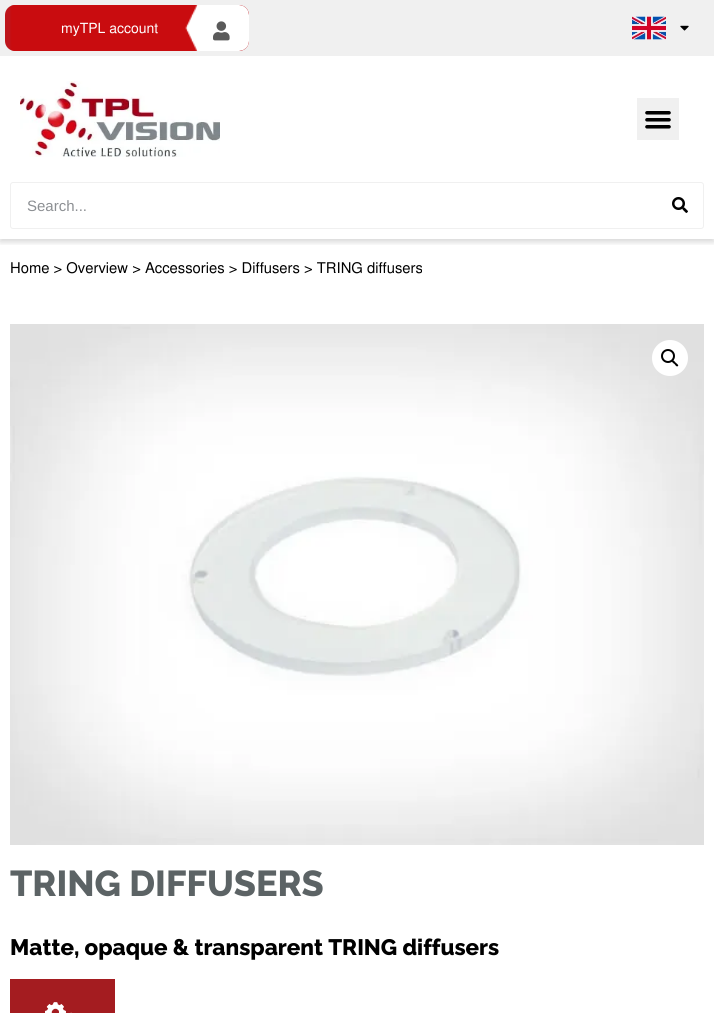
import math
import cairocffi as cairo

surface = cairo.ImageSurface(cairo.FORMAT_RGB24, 714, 1013)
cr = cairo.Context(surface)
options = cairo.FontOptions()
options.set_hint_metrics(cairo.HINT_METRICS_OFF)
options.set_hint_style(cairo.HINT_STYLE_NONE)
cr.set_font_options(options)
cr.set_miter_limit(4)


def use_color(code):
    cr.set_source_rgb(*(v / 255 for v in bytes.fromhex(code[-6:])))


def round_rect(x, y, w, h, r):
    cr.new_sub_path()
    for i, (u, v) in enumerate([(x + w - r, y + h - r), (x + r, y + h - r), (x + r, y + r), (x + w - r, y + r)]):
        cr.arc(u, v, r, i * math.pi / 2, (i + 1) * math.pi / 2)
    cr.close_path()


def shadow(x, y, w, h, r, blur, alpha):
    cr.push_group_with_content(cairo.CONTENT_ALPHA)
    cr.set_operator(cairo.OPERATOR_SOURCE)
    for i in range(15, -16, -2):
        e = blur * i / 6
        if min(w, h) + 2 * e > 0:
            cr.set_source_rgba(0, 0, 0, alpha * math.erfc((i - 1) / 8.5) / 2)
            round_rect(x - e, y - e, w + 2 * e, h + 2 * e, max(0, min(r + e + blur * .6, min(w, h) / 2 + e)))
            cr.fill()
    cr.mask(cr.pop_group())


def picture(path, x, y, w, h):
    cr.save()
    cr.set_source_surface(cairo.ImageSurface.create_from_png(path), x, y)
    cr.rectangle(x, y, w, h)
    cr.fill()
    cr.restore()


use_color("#ffffff")
cr.paint()
cr.save()
cr.rectangle(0, 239, 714, 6)
cr.clip()
use_color("#000000")
shadow(0, 59, 714, 183, 0, 3, 0.16)
cr.restore()
use_color("#f0f0f0")
cr.rectangle(0, 0, 714, 56)
cr.fill()
use_color("#be151b")
round_rect(5, 5, 244, 46, 10)
cr.fill()
picture("img1.png", 10, 5, 239, 46)
cr.select_font_face("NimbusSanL")
cr.set_font_size(14)
use_color("#ffffff")
cr.move_to(61, 33)
cr.show_text("myTPL account")
picture("img2.png", 213, 21, 17, 20)
picture("img3.png", 632, 16, 34, 24)
picture("img4.png", 680, 25, 9, 6)
picture("img5.png", 20, 81, 200, 76)
use_color("#f0f0f0")
cr.rectangle(637, 98, 42, 42)
cr.fill()
picture("img6.png", 645, 111, 26, 18)
round_rect(10.5, 182.5, 693, 46, 2.5)
cr.set_line_width(1)
cr.stroke()
cr.select_font_face("Liberation Sans")
cr.set_font_size(15)
use_color("#8c8f93")
cr.move_to(27, 211)
cr.show_text("Search...")
picture("img7.png", 672, 197, 16, 16)
cr.select_font_face("NimbusSanL")
cr.set_font_size(14.8)
use_color("#000000")
cr.move_to(10, 273)
cr.show_text("Home > Overview > Accessories > Diffusers > TRING diffusers")
picture("img8.png", 10, 324, 694, 521)
use_color("#ffffff")
cr.arc(670, 358, 18, 0, 2 * math.pi)
cr.fill()
cr.arc(668, 356, 6, 0, 2 * math.pi)
use_color("#000000")
cr.set_line_width(2)
cr.stroke()
cr.new_path()
cr.move_to(672, 360.5)
cr.curve_to(673.5, 359.5, 675, 362, 675.5, 362.5)
cr.curve_to(676.5, 363.5, 679, 365, 678, 366)
cr.curve_to(676.5, 367.5, 675, 364.5, 674.5, 364)
cr.curve_to(673.5, 363.5, 671, 361.5, 672, 360.5)
cr.close_path()
cr.fill()
cr.select_font_face("Raleway ExtraBold")
cr.set_font_size(36)
use_color("#5c6365")
cr.move_to(10, 896)
cr.show_text("TRING DIFFUSERS")
cr.set_font_size(22.4)
use_color("#000000")
cr.move_to(10, 955)
cr.show_text("Matte, opaque & transparent TRING diffusers")
use_color("#a41c20")
cr.rectangle(10, 979, 105, 34)
cr.fill()
picture("img9.png", 45, 1002, 27, 11)
surface.write_to_png("result.png")
